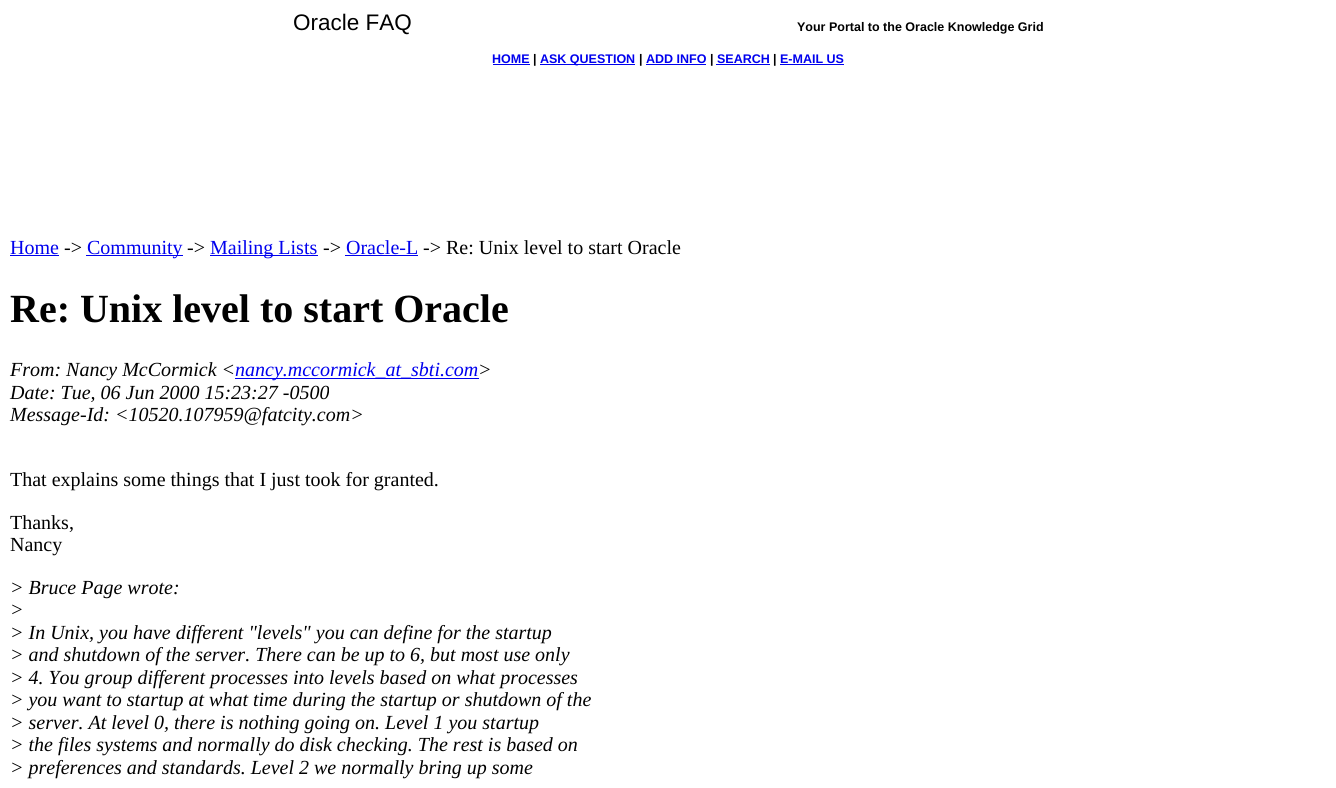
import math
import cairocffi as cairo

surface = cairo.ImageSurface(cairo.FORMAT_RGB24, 1336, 788)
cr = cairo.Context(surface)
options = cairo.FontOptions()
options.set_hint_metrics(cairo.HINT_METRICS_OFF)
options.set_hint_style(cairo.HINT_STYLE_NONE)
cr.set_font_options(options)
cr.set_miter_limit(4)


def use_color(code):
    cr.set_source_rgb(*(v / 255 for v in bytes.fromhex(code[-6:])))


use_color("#ffffff")
cr.paint()
cr.select_font_face("Liberation Sans")
cr.set_font_size(22.5)
use_color("#000000")
cr.move_to(293, 30)
cr.show_text("Oracle FAQ")
cr.select_font_face("Liberation Sans", cairo.FONT_SLANT_NORMAL, cairo.FONT_WEIGHT_BOLD)
cr.set_font_size(12.5)
cr.move_to(797, 31)
cr.show_text("Your Portal to the Oracle Knowledge Grid")
use_color("#0000ee")
cr.move_to(492, 63)
cr.show_text("HOME")
cr.rectangle(493, 64, 37, 1)
cr.fill()
use_color("#000000")
cr.move_to(533, 63)
cr.show_text("|")
use_color("#0000ee")
cr.rectangle(540, 64, 95, 1)
cr.fill()
cr.move_to(540, 63)
cr.show_text("ASK QUESTION")
use_color("#000000")
cr.move_to(639, 63)
cr.show_text("|")
use_color("#0000ee")
cr.move_to(646, 63)
cr.show_text("ADD INFO")
cr.rectangle(646, 64, 60, 1)
cr.fill()
use_color("#000000")
cr.move_to(710, 63)
cr.show_text("|")
use_color("#0000ee")
cr.move_to(717, 63)
cr.show_text("SEARCH")
cr.rectangle(716, 64, 54, 1)
cr.fill()
use_color("#000000")
cr.move_to(773, 63)
cr.show_text("|")
use_color("#0000ee")
cr.move_to(780, 63)
cr.show_text("E-MAIL US")
cr.rectangle(780, 64, 64, 1)
cr.fill()
cr.select_font_face("Liberation Serif")
cr.set_font_size(20)
cr.move_to(10, 254)
cr.show_text("Home")
cr.rectangle(10, 255, 49, 1)
cr.fill()
use_color("#000000")
cr.move_to(64, 254)
cr.show_text("->")
use_color("#0000ee")
cr.rectangle(86, 255, 97, 1)
cr.fill()
cr.move_to(87, 254)
cr.show_text("Community")
use_color("#000000")
cr.move_to(187, 254)
cr.show_text("->")
use_color("#0000ee")
cr.rectangle(210, 255, 108, 1)
cr.fill()
cr.move_to(210, 254)
cr.show_text("Mailing Lists")
use_color("#000000")
cr.move_to(323, 254)
cr.show_text("->")
use_color("#0000ee")
cr.move_to(346, 254)
cr.show_text("Oracle-L")
cr.rectangle(345, 255, 73, 1)
cr.fill()
use_color("#000000")
cr.move_to(423, 254)
cr.show_text("-> Re: Unix level to start Oracle")
cr.select_font_face("Liberation Serif", cairo.FONT_SLANT_NORMAL, cairo.FONT_WEIGHT_BOLD)
cr.set_font_size(40)
cr.move_to(10, 322)
cr.show_text("Re: Unix level to start Oracle")
cr.select_font_face("Liberation Serif", cairo.FONT_SLANT_ITALIC)
cr.set_font_size(20)
cr.move_to(10, 376)
cr.show_text("From: Nancy McCormick <")
use_color("#0000ee")
cr.rectangle(235, 378, 244, 1)
cr.fill()
cr.move_to(235, 376)
cr.show_text("nancy.mccormick_at_sbti.com")
use_color("#000000")
cr.move_to(478, 376)
cr.show_text(">")
cr.move_to(10, 399)
cr.show_text("Date: Tue, 06 Jun 2000 15:23:27 -0500")
cr.move_to(10, 421)
cr.show_text("Message-Id: <10520.107959@fatcity.com>")
cr.select_font_face("Liberation Serif")
cr.move_to(10, 486)
cr.show_text("That explains some things that I just took for granted.")
cr.move_to(10, 529)
cr.show_text("Thanks,")
cr.move_to(10, 551)
cr.show_text("Nancy")
cr.select_font_face("Liberation Serif", cairo.FONT_SLANT_ITALIC)
cr.move_to(10, 594)
cr.show_text("> Bruce Page wrote:")
cr.move_to(10, 616)
cr.show_text(">")
cr.move_to(10, 639)
cr.show_text("> In Unix, you have different \"levels\" you can define for the startup")
cr.move_to(10, 661)
cr.show_text("> and shutdown of the server. There can be up to 6, but most use only")
cr.move_to(10, 684)
cr.show_text("> 4. You group different processes into levels based on what processes")
cr.move_to(10, 706)
cr.show_text("> you want to startup at what time during the startup or shutdown of the")
cr.move_to(10, 729)
cr.show_text("> server. At level 0, there is nothing going on. Level 1 you startup")
cr.move_to(10, 751)
cr.show_text("> the files systems and normally do disk checking. The rest is based on")
cr.move_to(10, 774)
cr.show_text("> preferences and standards. Level 2 we normally bring up some")
surface.write_to_png("result.png")
